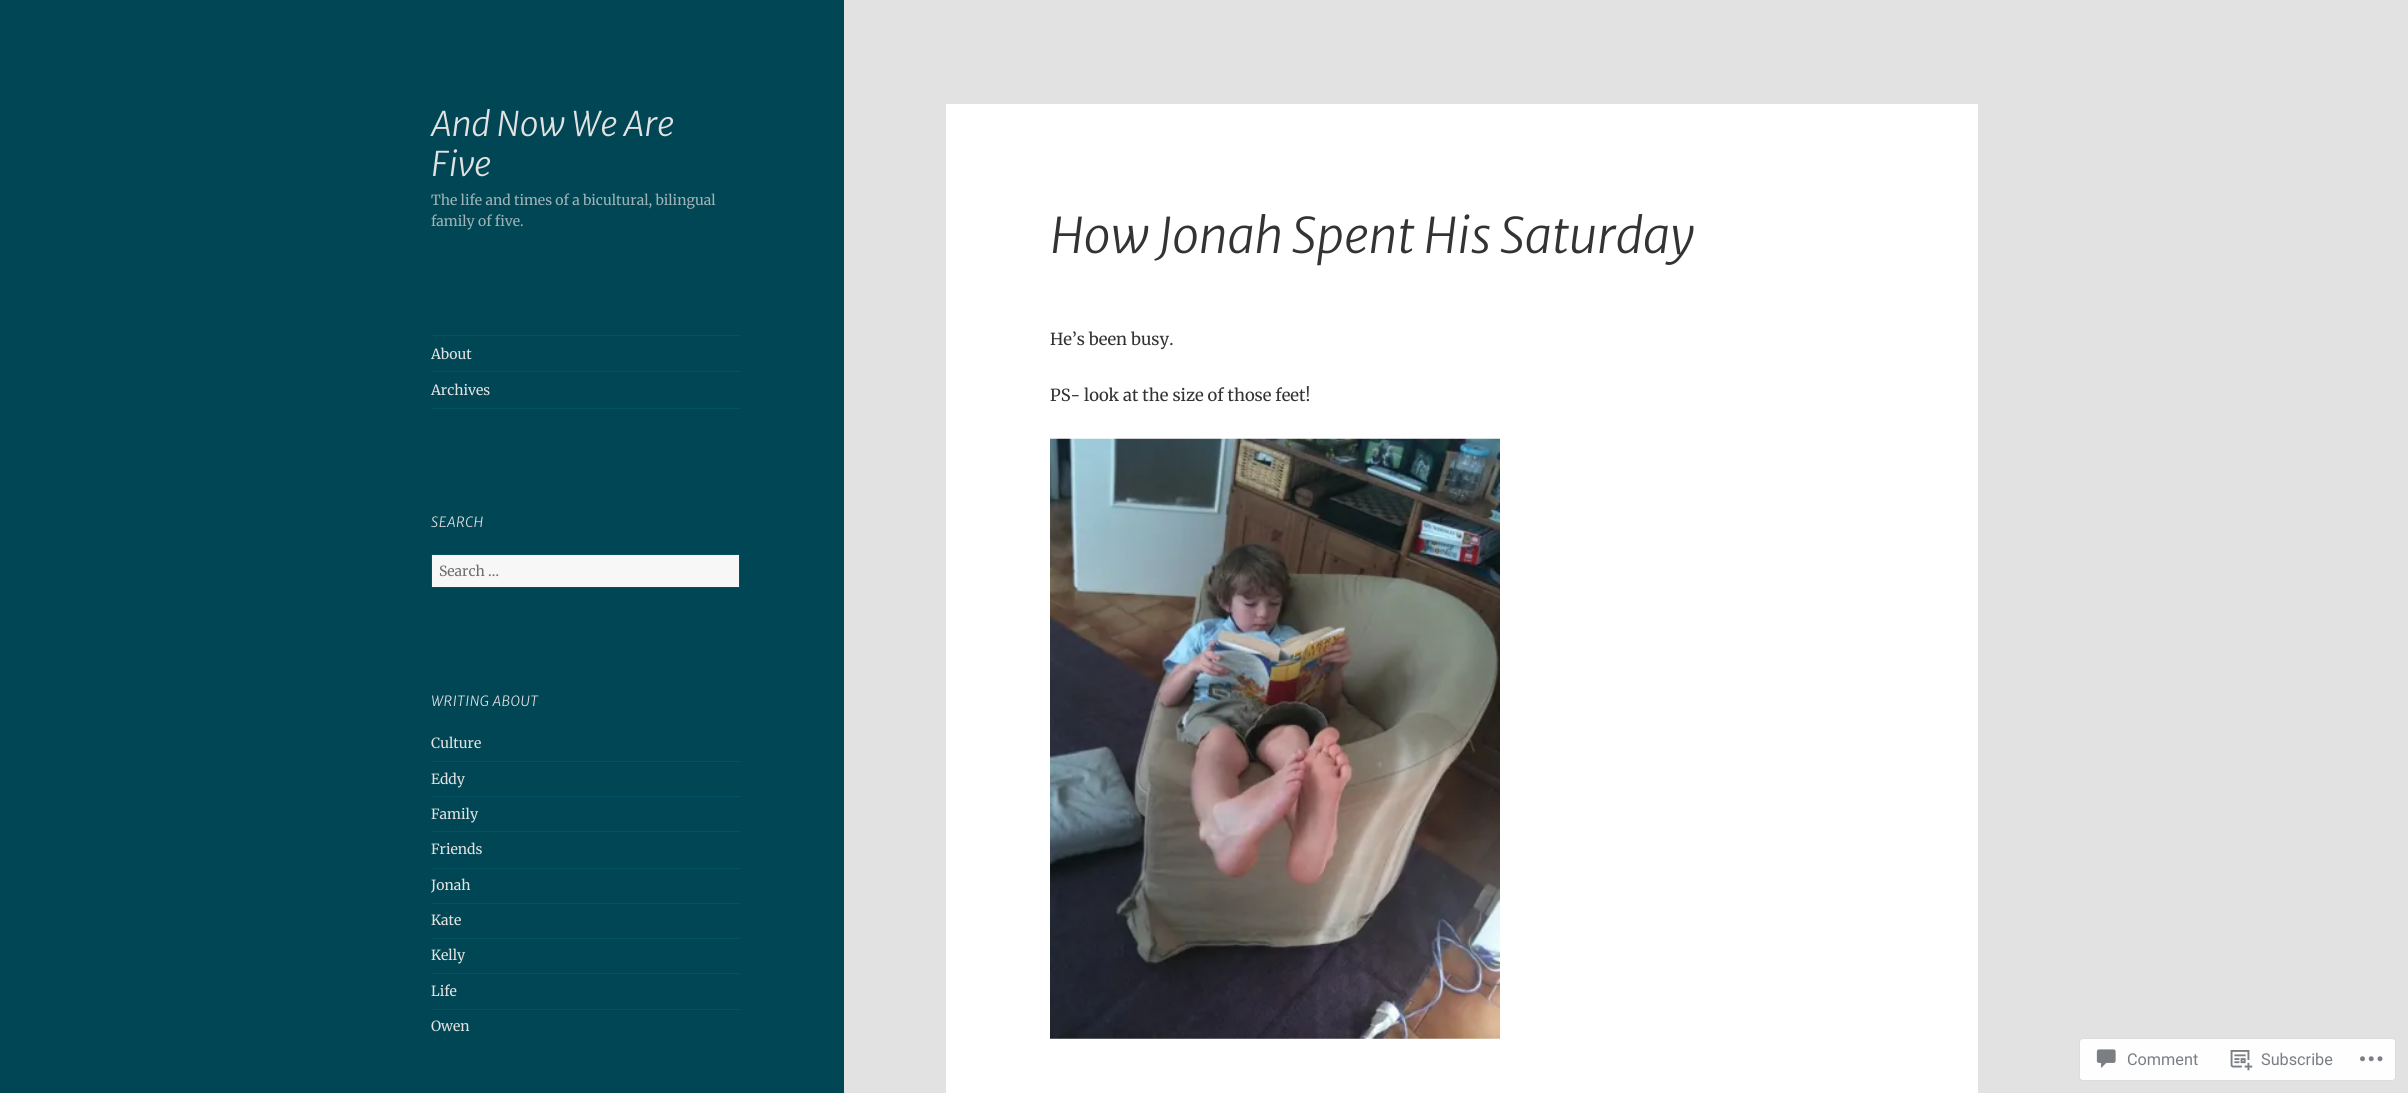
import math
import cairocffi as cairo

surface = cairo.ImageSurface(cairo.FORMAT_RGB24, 2408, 1093)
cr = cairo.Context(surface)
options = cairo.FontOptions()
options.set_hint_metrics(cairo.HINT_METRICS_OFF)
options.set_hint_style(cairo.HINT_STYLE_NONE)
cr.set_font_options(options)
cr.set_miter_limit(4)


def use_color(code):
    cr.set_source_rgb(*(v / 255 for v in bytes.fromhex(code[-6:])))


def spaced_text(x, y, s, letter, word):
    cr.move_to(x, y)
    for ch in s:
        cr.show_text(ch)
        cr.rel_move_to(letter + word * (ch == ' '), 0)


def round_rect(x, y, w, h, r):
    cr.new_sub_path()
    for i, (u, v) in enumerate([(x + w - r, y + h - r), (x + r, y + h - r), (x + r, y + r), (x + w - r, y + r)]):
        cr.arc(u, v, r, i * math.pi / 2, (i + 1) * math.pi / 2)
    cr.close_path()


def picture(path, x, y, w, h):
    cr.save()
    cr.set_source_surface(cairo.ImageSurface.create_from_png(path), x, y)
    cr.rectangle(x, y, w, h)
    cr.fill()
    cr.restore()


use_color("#e3e2e2")
cr.paint()
use_color("#004654")
cr.rectangle(0, 0, 844, 1093)
cr.fill()
cr.select_font_face("Merriweather Sans Light", cairo.FONT_SLANT_ITALIC)
cr.set_font_size(33.75)
use_color("#e3e2e2")
cr.move_to(431, 136)
cr.show_text("And Now We Are")
cr.move_to(431, 176)
cr.show_text("Five")
cr.select_font_face("Merriweather")
cr.set_font_size(14)
use_color("#9fb3b7")
cr.move_to(431, 205)
cr.show_text("The life and times of a bicultural, bilingual")
cr.move_to(431, 226)
cr.show_text("family of five.")
use_color("#005466")
cr.rectangle(431, 335, 309, 1)
cr.fill()
cr.rectangle(431, 408, 309, 1)
cr.fill()
use_color("#e3e2e2")
cr.move_to(431, 359)
cr.show_text("About")
use_color("#005466")
cr.rectangle(431, 371, 309, 1)
cr.fill()
use_color("#e3e2e2")
cr.move_to(431, 395)
cr.show_text("Archives")
cr.select_font_face("Merriweather Sans Light", cairo.FONT_SLANT_ITALIC)
spaced_text(431, 527, "SEARCH", 0.5, 0)
use_color("#f7f7f7")
cr.rectangle(431.5, 554.5, 308, 33)
cr.fill_preserve()
use_color("#005466")
cr.set_line_width(1)
cr.stroke()
cr.select_font_face("Merriweather")
use_color("#6e6e6e")
cr.move_to(439, 576)
cr.show_text("Search …")
cr.select_font_face("Merriweather Sans Light", cairo.FONT_SLANT_ITALIC)
use_color("#e3e2e2")
spaced_text(431, 706, "WRITING ABOUT", 0.5, 0)
cr.select_font_face("Merriweather")
cr.move_to(431, 748)
cr.show_text("Culture")
use_color("#005466")
cr.rectangle(431, 761, 309, 1)
cr.fill()
use_color("#e3e2e2")
cr.move_to(431, 784)
cr.show_text("Eddy")
use_color("#005466")
cr.rectangle(431, 796, 309, 1)
cr.fill()
use_color("#e3e2e2")
cr.move_to(431, 819)
cr.show_text("Family")
use_color("#005466")
cr.rectangle(431, 831, 309, 1)
cr.fill()
use_color("#e3e2e2")
cr.move_to(431, 854)
cr.show_text("Friends")
use_color("#005466")
cr.rectangle(431, 868, 309, 1)
cr.fill()
use_color("#e3e2e2")
cr.move_to(431, 890)
cr.show_text("Jonah")
use_color("#005466")
cr.rectangle(431, 903, 309, 1)
cr.fill()
use_color("#e3e2e2")
cr.move_to(431, 925)
cr.show_text("Kate")
use_color("#005466")
cr.rectangle(431, 938, 309, 1)
cr.fill()
use_color("#e3e2e2")
cr.move_to(431, 960)
cr.show_text("Kelly")
use_color("#005466")
cr.rectangle(431, 973, 309, 1)
cr.fill()
use_color("#e3e2e2")
cr.move_to(431, 996)
cr.show_text("Life")
use_color("#005466")
cr.rectangle(431, 1009, 309, 1)
cr.fill()
use_color("#e3e2e2")
cr.move_to(431, 1031)
cr.show_text("Owen")
use_color("#ffffff")
cr.rectangle(946, 104, 1032, 989)
cr.fill()
cr.select_font_face("Merriweather Sans Light", cairo.FONT_SLANT_ITALIC)
cr.set_font_size(48.75)
use_color("#333333")
cr.move_to(1050, 253)
cr.show_text("How Jonah Spent His Saturday")
cr.select_font_face("Merriweather")
cr.set_font_size(16.6)
cr.move_to(1050, 345)
cr.show_text("He’s been busy.")
cr.move_to(1050, 401)
cr.show_text("PS- look at the size of those feet!")
picture("img1.png", 1050, 438, 450, 601)
use_color("#fefefe")
round_rect(2079.5, 1038.5, 316, 42, 3.5)
cr.fill_preserve()
use_color("#dcdcde")
cr.stroke()
picture("img2.png", 2096, 1049, 20, 19)
cr.select_font_face("Roboto")
cr.set_font_size(16.25)
use_color("#7a7e84")
cr.move_to(2127, 1065)
cr.show_text("Comment")
picture("img3.png", 2230, 1050, 23, 21)
cr.move_to(2261, 1065)
cr.show_text("Subscribe")
picture("img4.png", 2360, 1056, 23, 6)
surface.write_to_png("result.png")
